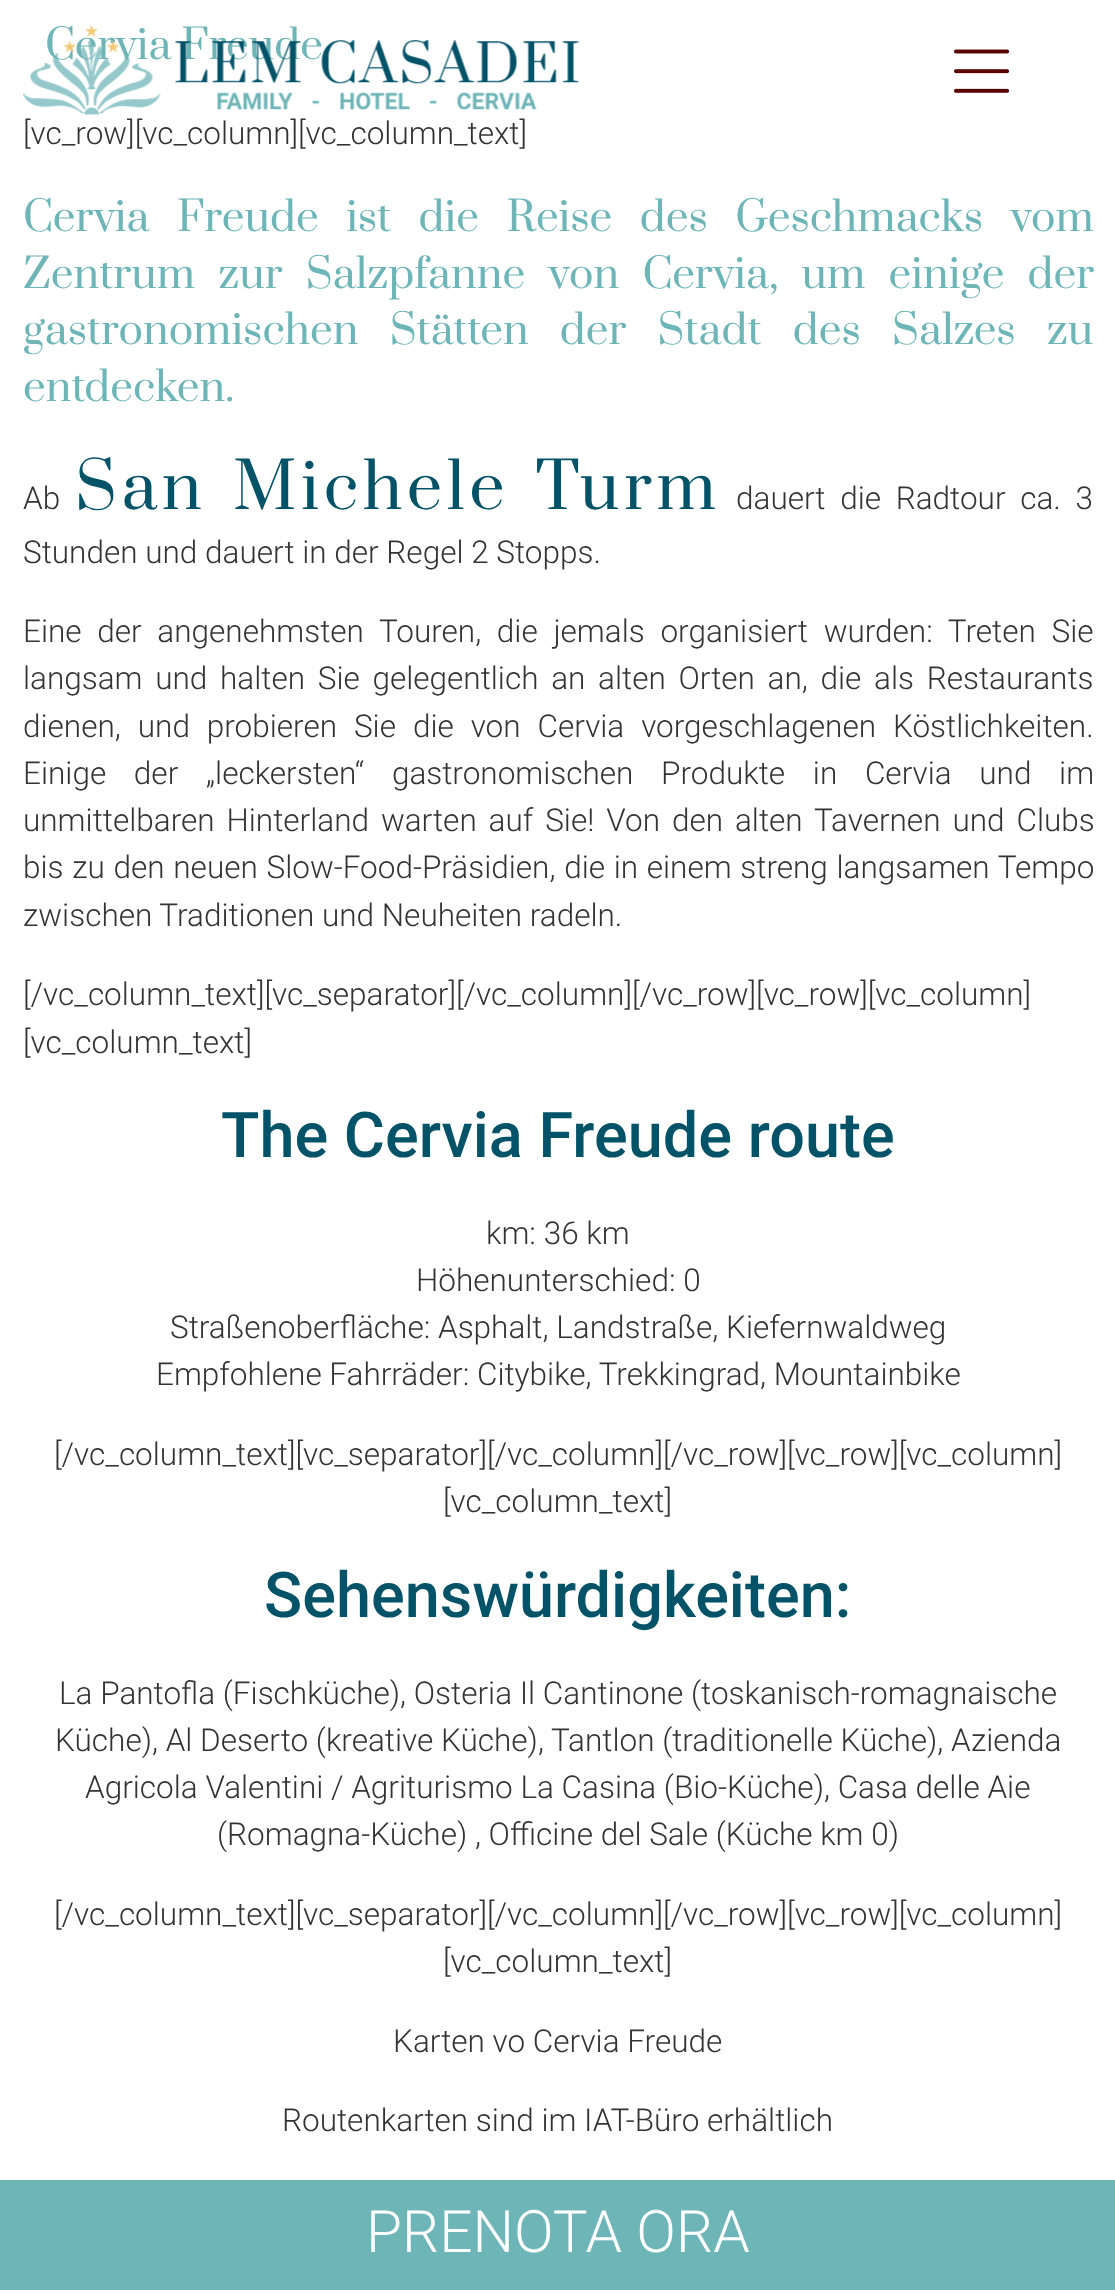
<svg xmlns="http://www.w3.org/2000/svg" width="1115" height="2290">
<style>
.a{font:40.5px Prata;fill:#6eb5b7}
.b{font:300 31.5px Roboto;fill:#333}
.c{font:63px Prata;letter-spacing:4.5px;fill:#025268}
.d{font:500 63px Roboto;fill:#025268}
.e{font:300 58.5px Roboto;fill:#fff}
</style>
<rect width="100%" height="100%" fill="#fff"/>
<image href="2.png" x="954" y="49" width="56" height="44"/>
<path fill="#6eb5b7" d="M0 2180h1115v110H0z"/>
<text class="a" x="45" y="59">Cervia Freude</text>
<text class="b" x="23" y="144">[vc_row][vc_column][vc_column_text]</text>
<text class="a" x="23" y="231" word-spacing="17.75">Cervia Freude ist die Reise des Geschmacks vom</text>
<text class="a" x="23" y="288" word-spacing="13.5">Zentrum zur Salzpfanne von Cervia, um einige der</text>
<text class="a" x="23" y="344" word-spacing="21.5">gastronomischen Stätten der Stadt des Salzes zu</text>
<text class="a" x="23" y="401">entdecken.</text>
<text class="b" x="23" y="509">Ab</text>
<text class="c" x="75" y="509" word-spacing="7">San Michele Turm</text>
<text class="b" x="736" y="509" word-spacing="7">dauert die Radtour ca. 3</text>
<text class="b" x="23" y="563">Stunden und dauert in der Regel 2 Stopps.</text>
<text class="b" x="23" y="642" word-spacing="8">Eine der angenehmsten Touren, die jemals organisiert wurden: Treten Sie</text>
<text class="b" x="23" y="689" word-spacing="5">langsam und halten Sie gelegentlich an alten Orten an, die als Restaurants</text>
<text class="b" x="23" y="737" word-spacing="9.25">dienen, und probieren Sie die von Cervia vorgeschlagenen Köstlichkeiten.</text>
<text class="b" x="23" y="784" word-spacing="20">Einige der „leckersten“ gastronomischen Produkte in Cervia und im</text>
<text class="b" x="23" y="831" word-spacing="4.25">unmittelbaren Hinterland warten auf Sie! Von den alten Tavernen und Clubs</text>
<text class="b" x="23" y="878" word-spacing="1">bis zu den neuen Slow-Food-Präsidien, die in einem streng langsamen Tempo</text>
<text class="b" x="23" y="926">zwischen Traditionen und Neuheiten radeln.</text>
<text class="b" x="23" y="1005">[/vc_column_text][vc_separator][/vc_column][/vc_row][vc_row][vc_column]</text>
<text class="b" x="23" y="1053">[vc_column_text]</text>
<text class="d" x="221" y="1157">The Cervia Freude route</text>
<text class="b" x="486" y="1244">km: 36 km</text>
<text class="b" x="416" y="1291">Höhenunterschied: 0</text>
<text class="b" x="170" y="1338">Straßenoberfläche: Asphalt, Landstraße, Kiefernwaldweg</text>
<text class="b" x="156" y="1385">Empfohlene Fahrräder: Citybike, Trekkingrad, Mountainbike</text>
<text class="b" x="54" y="1465">[/vc_column_text][vc_separator][/vc_column][/vc_row][vc_row][vc_column]</text>
<text class="b" x="443" y="1512">[vc_column_text]</text>
<text class="d" x="264" y="1617">Sehenswürdigkeiten:</text>
<text class="b" x="59" y="1704">La Pantofla (Fischküche), Osteria Il Cantinone (toskanisch-romagnaische</text>
<text class="b" x="55" y="1751">Küche), Al Deserto (kreative Küche), Tantlon (traditionelle Küche), Azienda</text>
<text class="b" x="85" y="1798">Agricola Valentini / Agriturismo La Casina (Bio-Küche), Casa delle Aie</text>
<text class="b" x="217" y="1845">(Romagna-Küche) , Officine del Sale (Küche km 0)</text>
<text class="b" x="54" y="1925">[/vc_column_text][vc_separator][/vc_column][/vc_row][vc_row][vc_column]</text>
<text class="b" x="443" y="1972">[vc_column_text]</text>
<text class="b" x="393" y="2052">Karten vo Cervia Freude</text>
<text class="b" x="282" y="2131">Routenkarten sind im IAT-Büro erhältlich</text>
<image href="1.png" x="23" y="25" width="556" height="91"/>
<text class="e" x="366" y="2252">PRENOTA ORA</text>
</svg>
